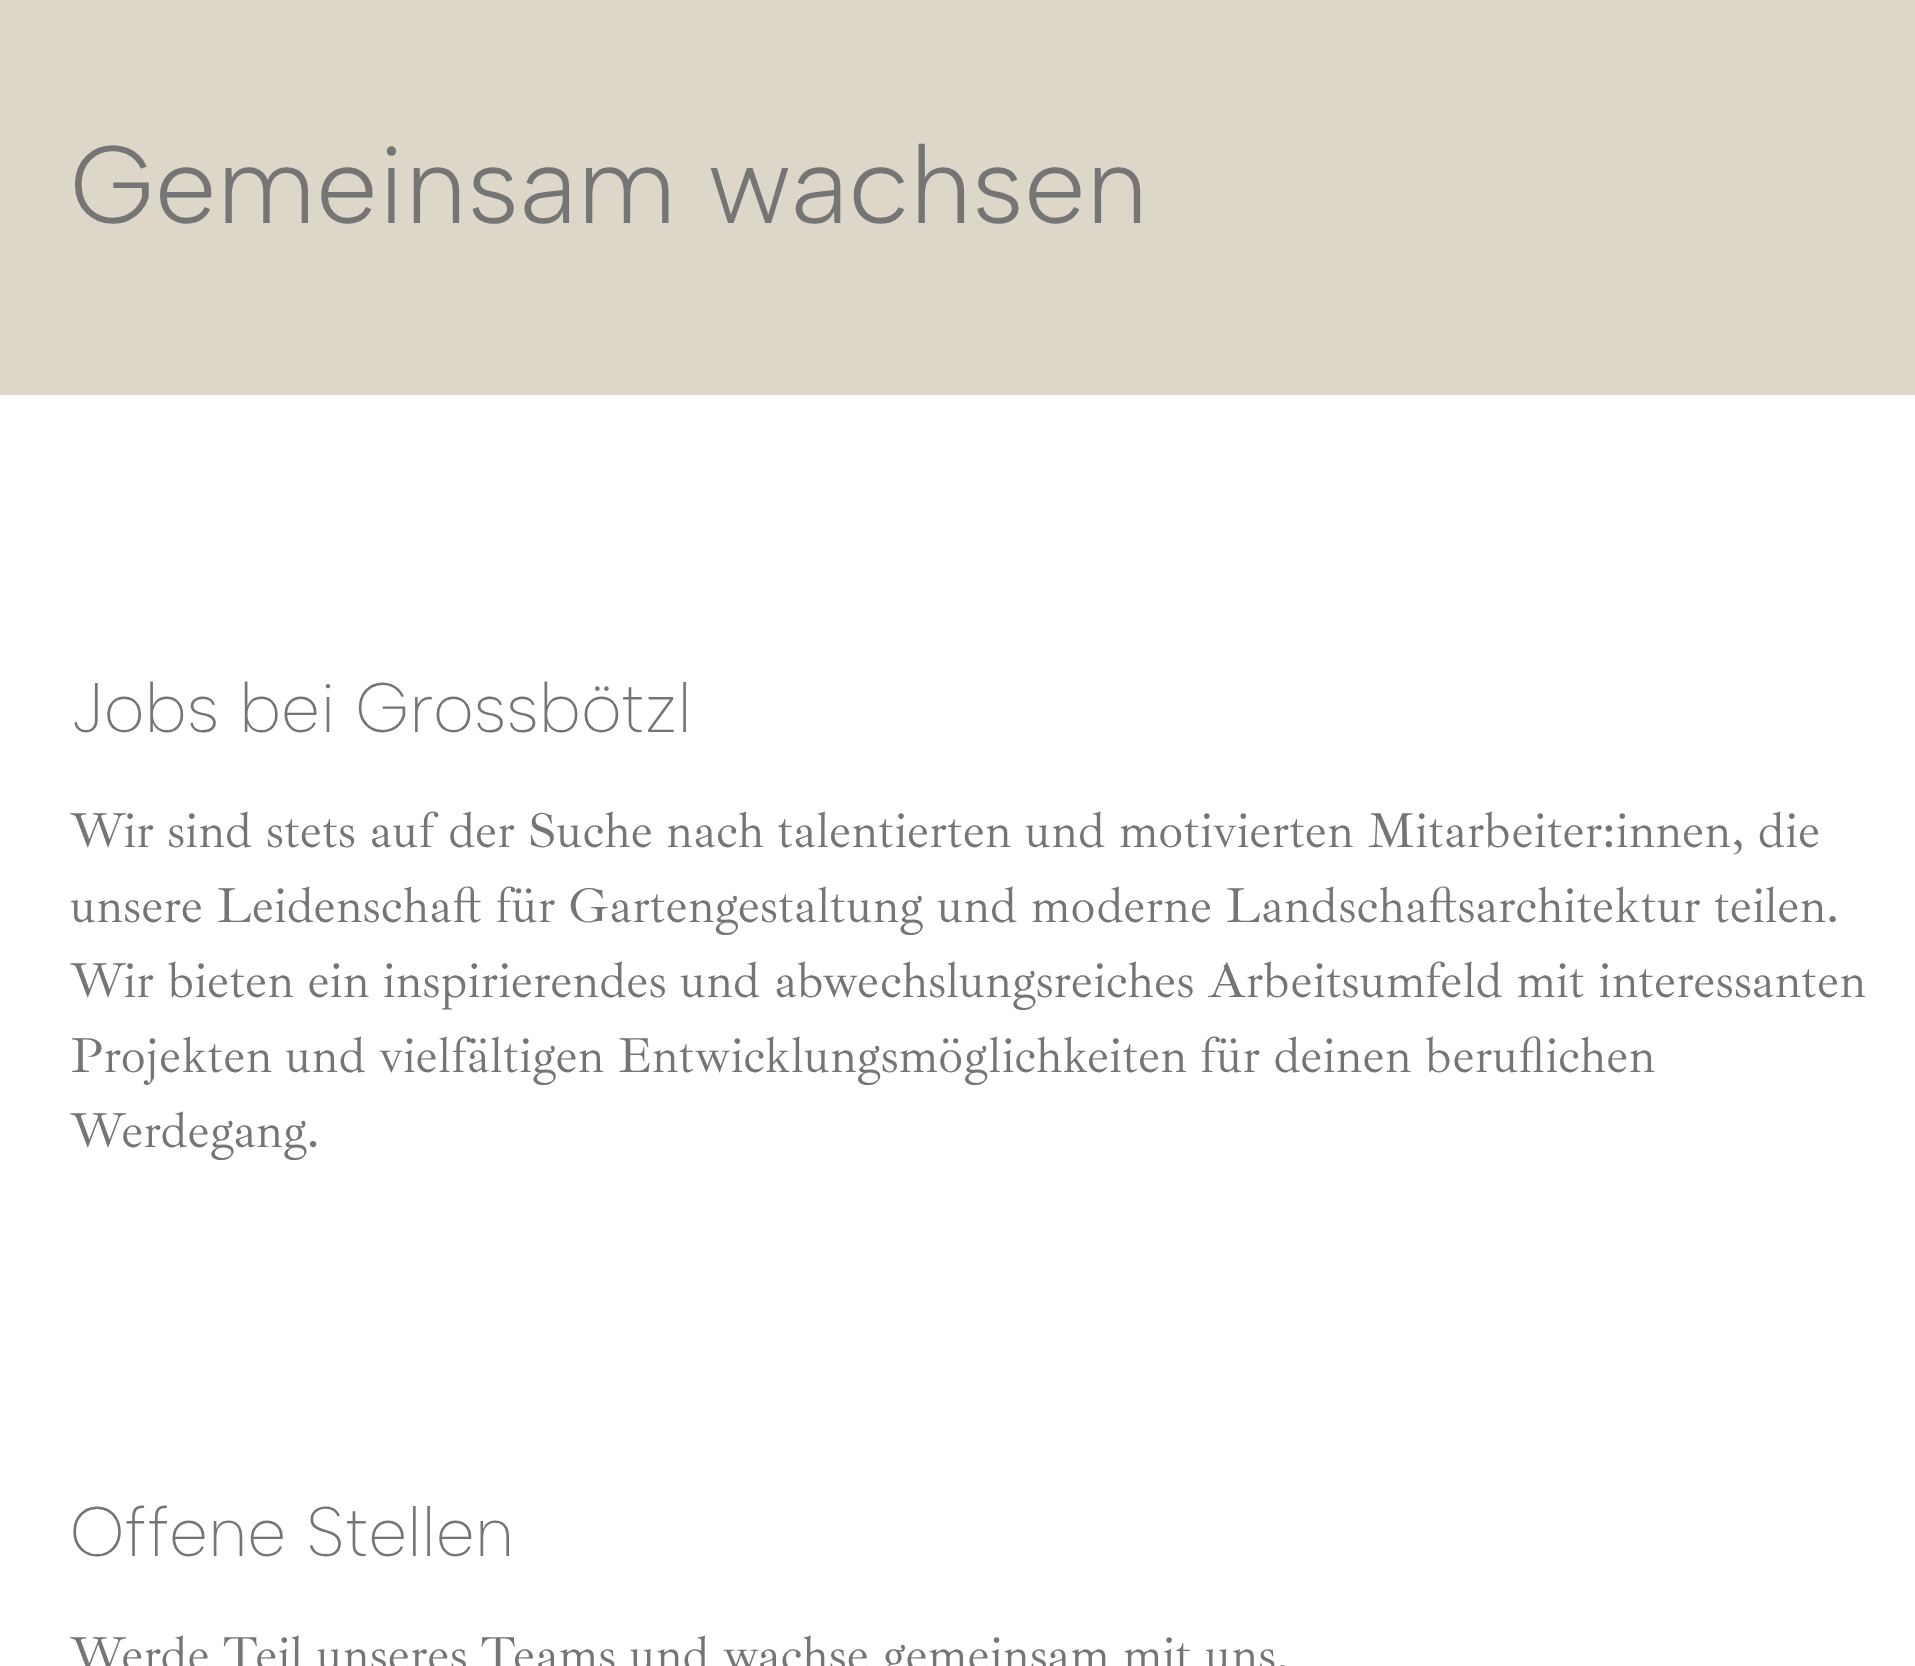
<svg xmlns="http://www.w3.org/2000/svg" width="1915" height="1666">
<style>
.a{font:300 110px Albert Sans;letter-spacing:0.25px;fill:#757575}
.b{font:200 70px Albert Sans;fill:#757575}
.c{font:50px Ibarra Real Nova;fill:#757575}
</style>
<rect width="100%" height="100%" fill="#fff"/>
<path fill="#dcd7c8" d="M0 0h1915v395H0z"/>
<text class="a" x="70" y="223">Gemeinsam wachsen</text>
<text class="b" x="70" y="732">Jobs bei Grossbötzl</text>
<text class="c" x="70" y="847">Wir sind stets auf der Suche nach talentierten und motivierten Mitarbeiter:innen, die</text>
<text class="c" x="70" y="922">unsere Leidenschaft für Gartengestaltung und moderne Landschaftsarchitektur teilen.</text>
<text class="c" x="70" y="997">Wir bieten ein inspirierendes und abwechslungsreiches Arbeitsumfeld mit interessanten</text>
<text class="c" x="70" y="1072">Projekten und vielfältigen Entwicklungsmöglichkeiten für deinen beruflichen</text>
<text class="c" x="70" y="1147">Werdegang.</text>
<text class="b" x="70" y="1556">Offene Stellen</text>
<text class="c" x="70" y="1671">Werde Teil unseres Teams und wachse gemeinsam mit uns.</text>
</svg>
